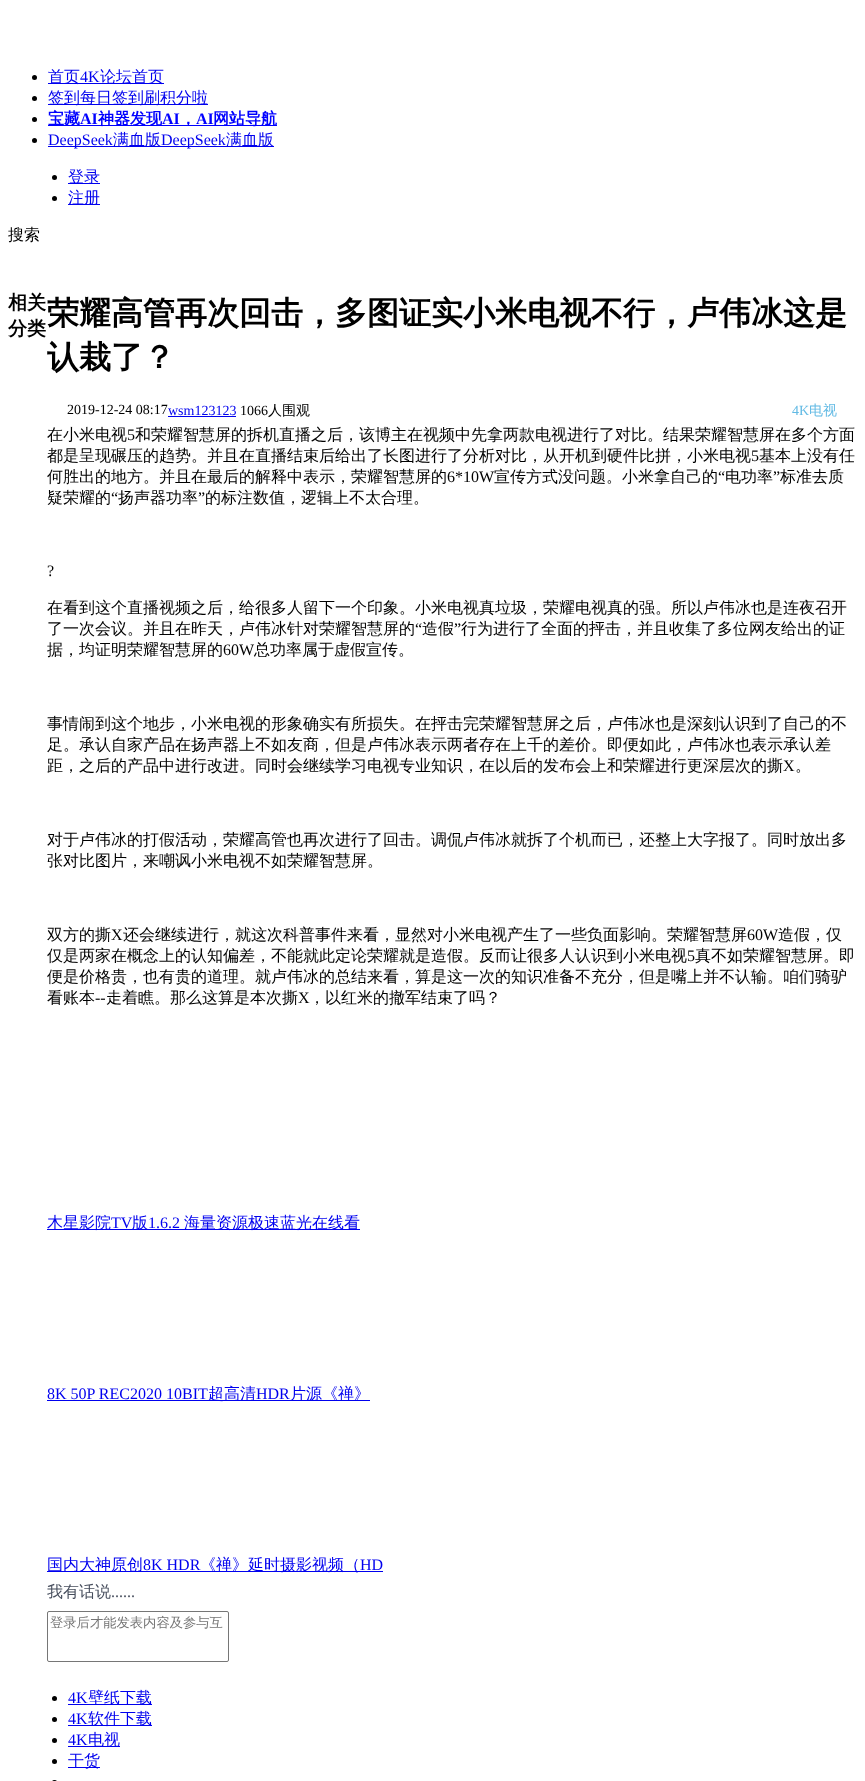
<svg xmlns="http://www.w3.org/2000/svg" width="865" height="1781">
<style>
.a{font:500 16px WenQuanYi Zen Hei;fill:#00e}
.b{font:16px Liberation Serif;fill:#00e}
.c{font:bold 16px WenQuanYi Zen Hei;fill:#00f}
.d{font:bold 16px Liberation Serif;fill:#00f}
.e{font:500 16px WenQuanYi Zen Hei;fill:#000}
.f{font:bold 19px WenQuanYi Zen Hei;fill:#000}
.g{font:bold 32px WenQuanYi Zen Hei;fill:#000}
.h{font:14px Liberation Serif;fill:#000}
.i{font:14px Liberation Serif;fill:#00e}
.j{font:500 14px WenQuanYi Zen Hei;fill:#000}
.k{font:14px Liberation Serif;fill:#62bae4}
.l{font:500 14px WenQuanYi Zen Hei;fill:#62bae4}
.m{font:16px Liberation Serif;fill:#000}
.n{font:500 16px WenQuanYi Zen Hei;fill:#474e5d}
.o{font:16px Liberation Serif;fill:#474e5d}
.p{font:500 13.3px WenQuanYi Zen Hei;fill:#757575}
</style>
<rect width="100%" height="100%" fill="#fff"/>
<circle fill="#000" cx="34.5" cy="77.5" r="2.5"/>
<path fill="#00e" d="M48 83h116v1H48z"/>
<circle fill="#000" cx="34.5" cy="98.5" r="2.5"/>
<path fill="#00e" d="M48 104h160v1H48z"/>
<circle fill="#000" cx="34.5" cy="119.5" r="2.5"/>
<path fill="#00f" d="M48 125h229v1H48z"/>
<circle fill="#000" cx="34.5" cy="140.5" r="2.5"/>
<path fill="#00e" d="M48 146h226v1H48z"/>
<circle fill="#000" cx="54.5" cy="177.5" r="2.5"/>
<path fill="#00e" d="M68 183h32v1H68z"/>
<circle fill="#000" cx="54.5" cy="198.5" r="2.5"/>
<path fill="#00e" d="M68 204h32v1H68z"/>
<circle fill="#000" cx="54.5" cy="1698.5" r="2.5"/>
<path fill="#00e" d="M68 1704h84v1H68z"/>
<circle fill="#000" cx="54.5" cy="1719.5" r="2.5"/>
<path fill="#00e" d="M68 1725h84v1H68z"/>
<circle fill="#000" cx="54.5" cy="1740.5" r="2.5"/>
<path fill="#00e" d="M68 1746h52v1H68z"/>
<circle fill="#000" cx="54.5" cy="1761.5" r="2.5"/>
<path fill="#00e" d="M68 1767h32v1H68z"/>
<rect fill="#000" x="52" y="1780" width="5" height="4" rx="2.5"/>
<path fill="#00e" d="M168 416h68v1H168z"/>
<path fill="#00e" d="M47 1229h313v1H47z"/>
<path fill="#00e" d="M47 1400h323v1H47z"/>
<path fill="#00e" d="M47 1571h336v1H47z"/>
<rect fill="none" stroke="#767676" x="47.5" y="1611.5" width="181" height="50" rx="1.5"/>
<text class="a" x="48" y="82">首页</text>
<text class="b" x="80" y="82">4K</text>
<text class="a" x="100" y="82">论坛首页</text>
<text class="a" x="48" y="103">签到每日签到刷积分啦</text>
<text class="c" x="48" y="124">宝藏</text>
<text class="d" x="80" y="124">AI</text>
<text class="c" x="98" y="124">神器发现</text>
<text class="d" x="162" y="124">AI</text>
<text class="d" x="196" y="124">AI</text>
<text class="c" x="213" y="124">网站导航</text>
<text class="c" x="180" y="124">，</text>
<text class="b" x="48" y="145">DeepSeek</text>
<text class="a" x="113" y="145">满血版</text>
<text class="b" x="161" y="145">DeepSeek</text>
<text class="a" x="226" y="145">满血版</text>
<text class="a" x="68" y="182">登录</text>
<text class="a" x="68" y="203">注册</text>
<text class="e" x="8" y="240">搜索</text>
<text class="f" x="8" y="309">相关</text>
<text class="f" x="8" y="335">分类</text>
<text class="b" x="68" y="1703">4K</text>
<text class="a" x="88" y="1703">壁纸下载</text>
<text class="b" x="68" y="1724">4K</text>
<text class="a" x="88" y="1724">软件下载</text>
<text class="b" x="68" y="1745">4K</text>
<text class="a" x="88" y="1745">电视</text>
<text class="a" x="68" y="1766">干货</text>
<text class="g" x="47" y="324">荣耀高管再次回击，多图证实小米电视不行，卢伟冰这是</text>
<text class="g" x="47" y="368">认栽了？</text>
<text class="h" x="67" y="414">2019-12-24 08:17</text>
<text class="i" x="168" y="415">wsm123123</text>
<text class="h" x="240" y="415">1066</text>
<text class="j" x="268" y="415">人围观</text>
<text class="k" x="792" y="415">4K</text>
<text class="l" x="809" y="415">电视</text>
<text class="e" x="47" y="440">在小米电视</text>
<text class="m" x="127" y="440">5</text>
<text class="e" x="135" y="440">和荣耀智慧屏的拆机直播之后，该博主在视频中先拿两款电视进行了对比。结果荣耀智慧屏在多个方面</text>
<text class="e" x="47" y="461">都是呈现碾压的趋势。并且在直播结束后给出了长图进行了分析对比，从开机到硬件比拼，小米电视</text>
<text class="m" x="751" y="461">5</text>
<text class="e" x="759" y="461">基本上没有任</text>
<text class="e" x="47" y="482">何胜出的地方。并且在最后的解释中表示，荣耀智慧屏的</text>
<text class="m" x="447" y="482">6*10W</text>
<text class="e" x="494" y="482">宣传方式没问题。小米拿自己的</text>
<text class="m" x="718" y="482">“</text>
<text class="e" x="725" y="482">电功率</text>
<text class="m" x="773" y="482">”</text>
<text class="e" x="780" y="482">标准去质</text>
<text class="e" x="47" y="503">疑荣耀的</text>
<text class="m" x="111" y="503">“</text>
<text class="e" x="118" y="503">扬声器功率</text>
<text class="m" x="198" y="503">”</text>
<text class="e" x="205" y="503">的标注数值，逻辑上不太合理。</text>
<text class="m" x="47" y="576">?</text>
<text class="e" x="47" y="613">在看到这个直播视频之后，给很多人留下一个印象。小米电视真垃圾，荣耀电视真的强。所以卢伟冰也是连夜召开</text>
<text class="e" x="47" y="634">了一次会议。并且在昨天，卢伟冰针对荣耀智慧屏的</text>
<text class="m" x="415" y="634">“</text>
<text class="e" x="422" y="634">造假</text>
<text class="m" x="454" y="634">”</text>
<text class="e" x="461" y="634">行为进行了全面的抨击，并且收集了多位网友给出的证</text>
<text class="e" x="47" y="655">据，均证明荣耀智慧屏的</text>
<text class="m" x="223" y="655">60W</text>
<text class="e" x="254" y="655">总功率属于虚假宣传。</text>
<text class="e" x="47" y="729">事情闹到这个地步，小米电视的形象确实有所损失。在抨击完荣耀智慧屏之后，卢伟冰也是深刻认识到了自己的不</text>
<text class="e" x="47" y="750">足。承认自家产品在扬声器上不如友商，但是卢伟冰表示两者存在上千的差价。即便如此，卢伟冰也表示承认差</text>
<text class="e" x="47" y="771">距，之后的产品中进行改进。同时会继续学习电视专业知识，在以后的发布会上和荣耀进行更深层次的撕</text>
<text class="m" x="783" y="771">X</text>
<text class="e" x="795" y="771">。</text>
<text class="e" x="47" y="845">对于卢伟冰的打假活动，荣耀高管也再次进行了回击。调侃卢伟冰就拆了个机而已，还整上大字报了。同时放出多</text>
<text class="e" x="47" y="866">张对比图片，来嘲讽小米电视不如荣耀智慧屏。</text>
<text class="e" x="47" y="940">双方的撕</text>
<text class="m" x="111" y="940">X</text>
<text class="e" x="123" y="940">还会继续进行，就这次科普事件来看，显然对小米电视产生了一些负面影响。荣耀智慧屏</text>
<text class="m" x="747" y="940">60W</text>
<text class="e" x="778" y="940">造假，仅</text>
<text class="e" x="47" y="961">仅是两家在概念上的认知偏差，不能就此定论荣耀就是造假。反而让很多人认识到小米电视</text>
<text class="m" x="687" y="961">5</text>
<text class="e" x="695" y="961">真不如荣耀智慧屏。即</text>
<text class="e" x="47" y="982">便是价格贵，也有贵的道理。就卢伟冰的总结来看，算是这一次的知识准备不充分，但是嘴上并不认输。咱们骑驴</text>
<text class="e" x="47" y="1003">看账本</text>
<text class="m" x="95" y="1003">--</text>
<text class="e" x="106" y="1003">走着瞧。那么这算是本次撕</text>
<text class="m" x="298" y="1003">X</text>
<text class="e" x="309" y="1003">，以红米的撤军结束了吗？</text>
<text class="a" x="47" y="1228">木星影院</text>
<text class="b" x="111" y="1228">TV</text>
<text class="a" x="132" y="1228">版</text>
<text class="b" x="148" y="1228">1.6.2</text>
<text class="a" x="184" y="1228">海量资源极速蓝光在线看</text>
<text class="b" x="47" y="1399">8K 50P REC2020 10BIT</text>
<text class="a" x="208" y="1399">超高清</text>
<text class="b" x="256" y="1399">HDR</text>
<text class="a" x="290" y="1399">片源《禅》</text>
<text class="a" x="47" y="1570">国内大神原创</text>
<text class="b" x="143" y="1570">8K HDR</text>
<text class="a" x="200" y="1570">《禅》延时摄影视频（</text>
<text class="b" x="360" y="1570">HD</text>
<text class="n" x="47" y="1597">我有话说</text>
<text class="o" x="111" y="1597">......</text>
<text class="p" x="50" y="1627">登录后才能发表内容及参与互</text>
</svg>
